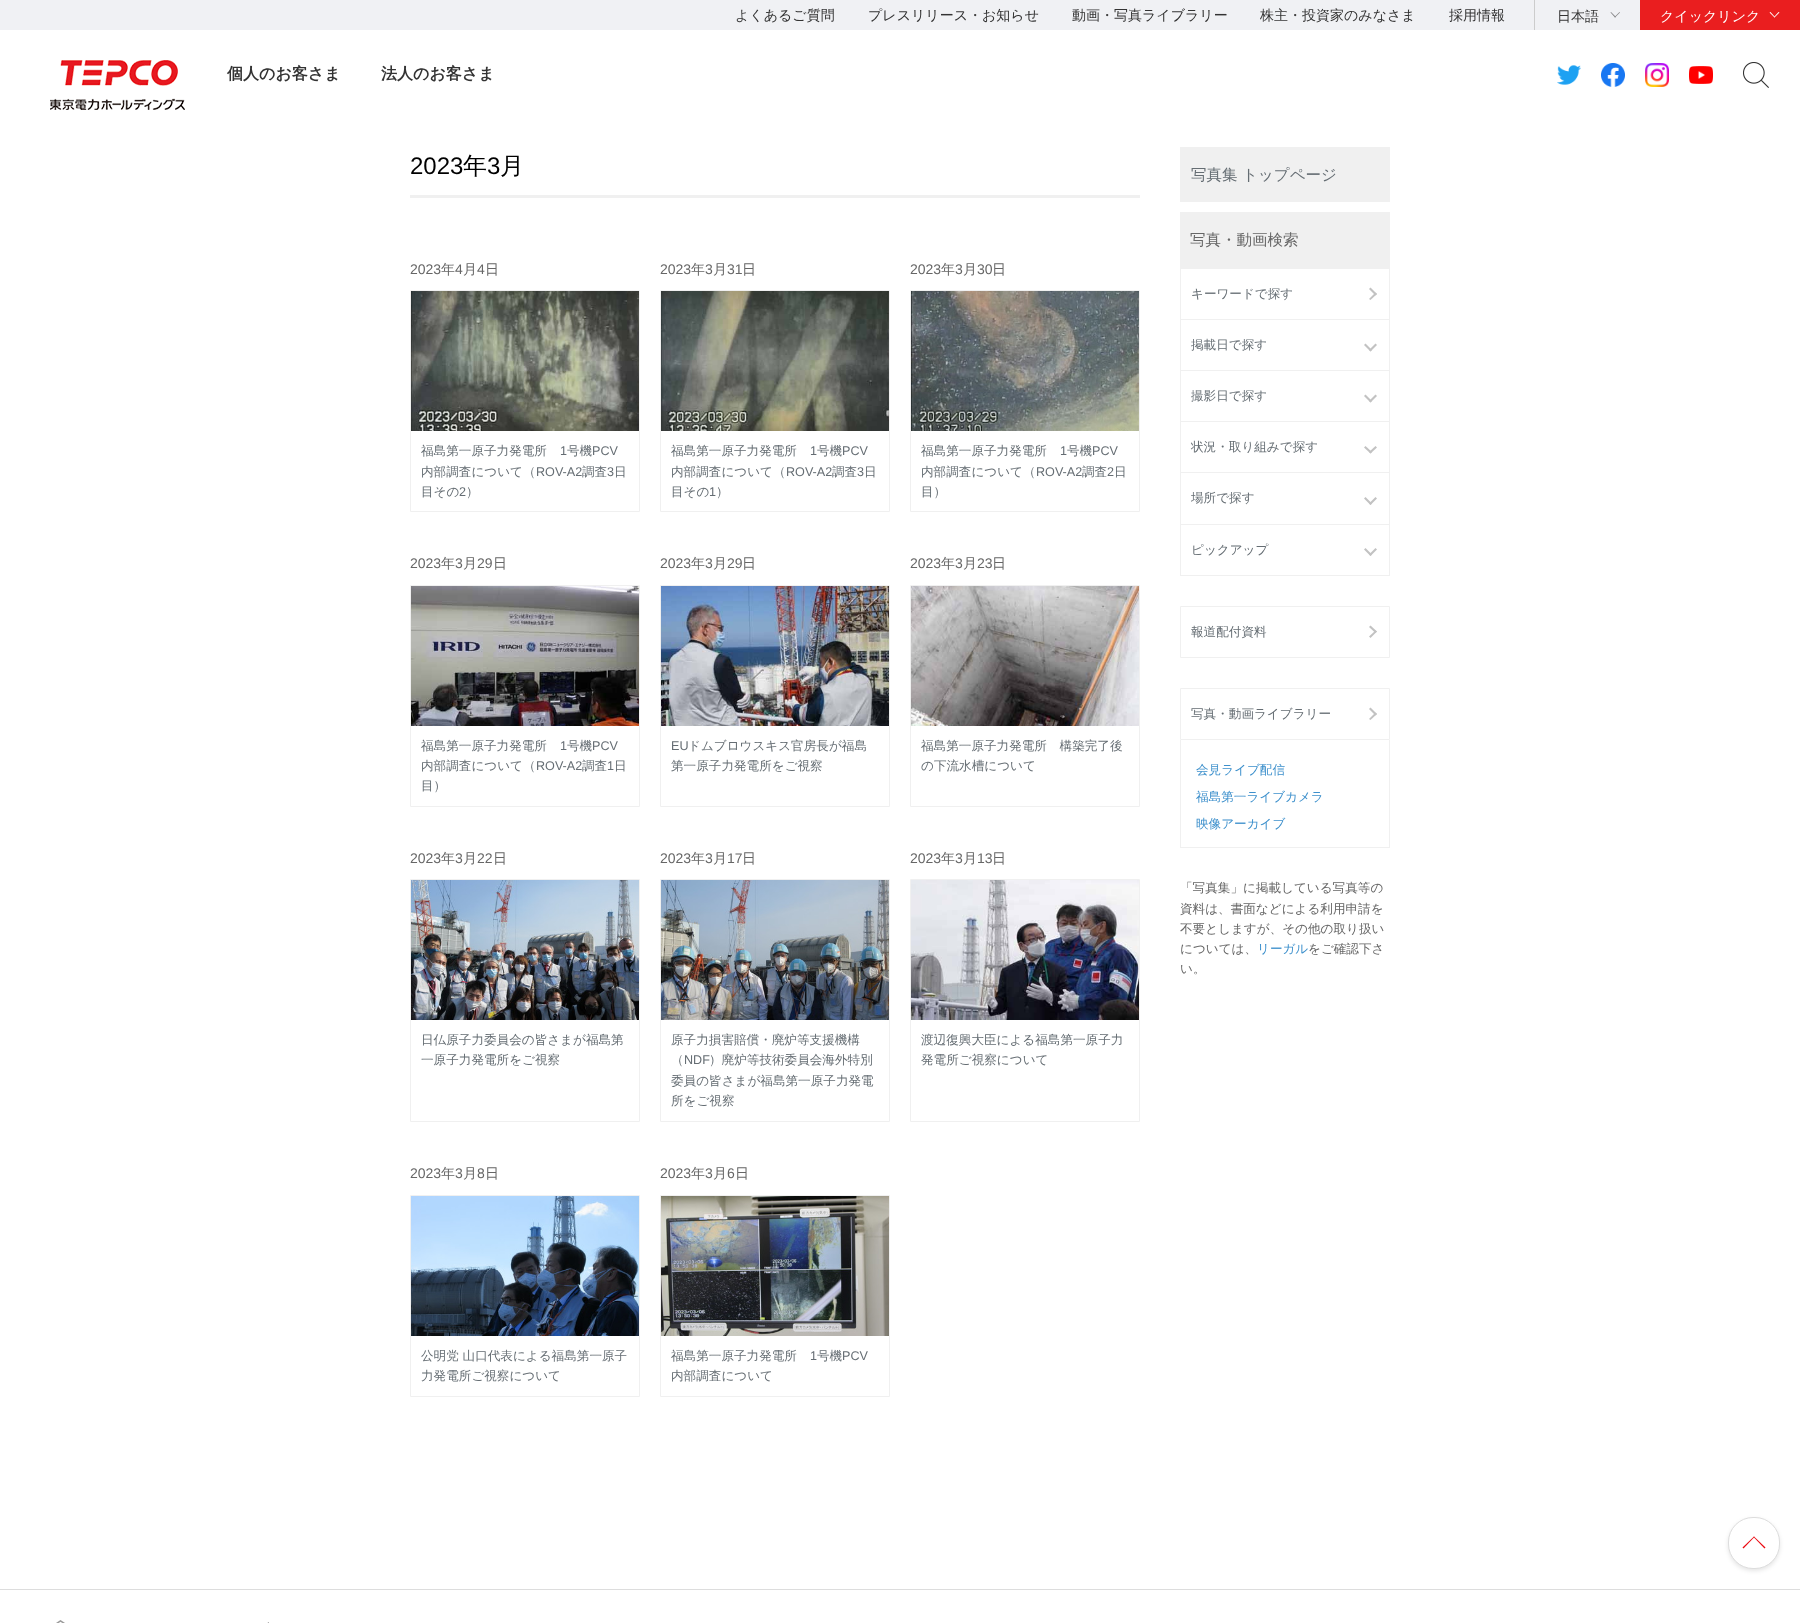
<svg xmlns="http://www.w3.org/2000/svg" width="1800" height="1623">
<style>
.a{font:500 14px WenQuanYi Zen Hei;fill:#333}
.b{font:500 14px WenQuanYi Zen Hei;fill:#fff}
.c{font:bold 16px WenQuanYi Zen Hei;fill:#333}
.d{font:24px Liberation Sans;fill:#000}
.e{font:500 24px WenQuanYi Zen Hei;fill:#000}
.f{font:14px Liberation Sans;fill:#666}
.g{font:500 14px WenQuanYi Zen Hei;fill:#666}
.h{font:500 12.6px WenQuanYi Zen Hei;fill:#656d73}
.i{font:12.6px Liberation Sans;fill:#656d73}
.j{font:500 15.5px WenQuanYi Zen Hei;fill:#656d73}
.k{font:500 15.5px WenQuanYi Zen Hei;fill:#666}
.l{font:500 12.6px WenQuanYi Zen Hei;fill:#3d90cc}
.m{font:500 12.6px WenQuanYi Zen Hei;fill:#666}
</style>
<rect width="100%" height="100%" fill="#fff"/>
<image href="1.png" x="50" y="60" width="135" height="50"/>
<path fill="#f0f1f4" d="M0 0h1640v30H0z"/>
<path fill="#ccc" d="M1534 0h1v30H1534z"/>
<path fill="#848485" d="M1619.5 12l.5 .5l-5 5l-.5-.5z"/>
<path fill="#848485" d="M1611 12l5 5l-1 .5l-4.5-5z"/>
<path fill="#ea1e1f" d="M1640 0h160v30H1640z"/>
<path fill="#fff" d="M1778.5 12l1 .5l-5 5l-.5-.5z"/>
<path fill="#fff" d="M1770.5 12l4.5 5l-.5 .5l-5-5z"/>
<image href="2.png" x="1557" y="65" width="24" height="20"/>
<image href="3.png" x="1601" y="63" width="24" height="24"/>
<image href="4.png" x="1645" y="63" width="24" height="24"/>
<image href="5.png" x="1689" y="66" width="24" height="18"/>
<image href="6.png" x="1743" y="62" width="26" height="26"/>
<path fill="#f0f0f0" d="M410 195h730v3H410z"/>
<path fill="none" stroke="#f0f0f0" d="M410.5 290.5h229v221H410.5z"/>
<image href="7.png" x="411" y="291" width="228" height="140"/>
<path fill="none" stroke="#f0f0f0" d="M660.5 290.5h229v221H660.5z"/>
<image href="8.png" x="661" y="291" width="228" height="140"/>
<path fill="none" stroke="#f0f0f0" d="M910.5 290.5h229v221H910.5z"/>
<image href="9.png" x="911" y="291" width="228" height="140"/>
<path fill="none" stroke="#f0f0f0" d="M410.5 585.5h229v221H410.5z"/>
<image href="10.png" x="411" y="586" width="228" height="140"/>
<path fill="none" stroke="#f0f0f0" d="M660.5 585.5h229v221H660.5z"/>
<image href="11.png" x="661" y="586" width="228" height="140"/>
<path fill="none" stroke="#f0f0f0" d="M910.5 585.5h229v221H910.5z"/>
<image href="12.png" x="911" y="586" width="228" height="140"/>
<path fill="none" stroke="#f0f0f0" d="M410.5 879.5h229v242H410.5z"/>
<image href="13.png" x="411" y="880" width="228" height="140"/>
<path fill="none" stroke="#f0f0f0" d="M660.5 879.5h229v242H660.5z"/>
<image href="14.png" x="661" y="880" width="228" height="140"/>
<path fill="none" stroke="#f0f0f0" d="M910.5 879.5h229v242H910.5z"/>
<image href="15.png" x="911" y="880" width="228" height="140"/>
<path fill="none" stroke="#f0f0f0" d="M410.5 1195.5h229v201H410.5z"/>
<image href="16.png" x="411" y="1196" width="228" height="140"/>
<path fill="none" stroke="#f0f0f0" d="M660.5 1195.5h229v201H660.5z"/>
<image href="17.png" x="661" y="1196" width="228" height="140"/>
<path fill="#f0f0f0" d="M1180 147h210v55H1180z"/>
<path fill="#f0f0f0" d="M1180 212h210v57H1180z"/>
<path fill="#f0f0f0" d="M1180 575h210v1H1180z"/>
<path fill="#f0f0f0" d="M1389 268h1v51H1389z"/>
<path fill="#f0f0f0" d="M1180 268h1v51H1180z"/>
<path fill="#c2c2c2" d="M1370.5 287.5l6.5 6.5l-1.5 1.5l-6.5-6.5z"/>
<path fill="#c2c2c2" d="M1375.5 292.5l1.5 1.5l-6.5 6l-1.5-1z"/>
<path fill="#f0f0f0" d="M1180 319h210v1H1180z"/>
<path fill="#f0f0f0" d="M1389 319h1v51H1389z"/>
<path fill="#f0f0f0" d="M1180 319h1v51H1180z"/>
<path fill="#c2c2c2" d="M1375.5 343.5l1.5 1.5l-6.5 6.5l-1.5-1.5z"/>
<path fill="#c2c2c2" d="M1365.5 343.5l6.5 6.5l-1.5 1.5l-6.5-6.5z"/>
<path fill="#f0f0f0" d="M1180 370h210v1H1180z"/>
<path fill="#f0f0f0" d="M1389 370h1v51H1389z"/>
<path fill="#f0f0f0" d="M1180 370h1v51H1180z"/>
<path fill="#c2c2c2" d="M1375.5 394.5l1.5 1.5l-6.5 6.5l-1.5-1.5z"/>
<path fill="#c2c2c2" d="M1365.5 394.5l6.5 6.5l-1.5 1.5l-6.5-6.5z"/>
<path fill="#f0f0f0" d="M1180 421h210v1H1180z"/>
<path fill="#f0f0f0" d="M1389 421h1v51H1389z"/>
<path fill="#f0f0f0" d="M1180 421h1v51H1180z"/>
<path fill="#c2c2c2" d="M1375.5 446l1.5 1.5l-6.5 6l-1.5-1.5z"/>
<path fill="#c2c2c2" d="M1365.5 446l6.5 6l-1.5 1.5l-6.5-6z"/>
<path fill="#f0f0f0" d="M1180 472h210v1H1180z"/>
<path fill="#f0f0f0" d="M1389 472h1v52H1389z"/>
<path fill="#f0f0f0" d="M1180 472h1v52H1180z"/>
<path fill="#c2c2c2" d="M1375.5 497l1.5 1.5l-6.5 6.5l-1.5-1.5z"/>
<path fill="#c2c2c2" d="M1365.5 497l6.5 6.5l-1.5 1.5l-6.5-6.5z"/>
<path fill="#f0f0f0" d="M1180 524h210v1H1180z"/>
<path fill="#f0f0f0" d="M1389 524h1v51H1389z"/>
<path fill="#f0f0f0" d="M1180 524h1v51H1180z"/>
<path fill="#c2c2c2" d="M1375.5 548l1.5 1.5l-6.5 6.5l-1.5-1.5z"/>
<path fill="#c2c2c2" d="M1365.5 548l6.5 6.5l-1.5 1.5l-6.5-6.5z"/>
<path fill="none" stroke="#f0f0f0" d="M1180.5 606.5h209v51H1180.5z"/>
<path fill="#c2c2c2" d="M1370.5 625.5l6.5 6l-1.5 1.5l-6.5-6z"/>
<path fill="#c2c2c2" d="M1375.5 630.5l1.5 1l-6.5 6.5l-1.5-1.5z"/>
<path fill="none" stroke="#f0f0f0" d="M1180.5 688.5h209v51H1180.5z"/>
<path fill="#c2c2c2" d="M1370.5 707.5l6.5 6.5l-1.5 1.5l-6.5-6.5z"/>
<path fill="#c2c2c2" d="M1375.5 712.5l1.5 1.5l-6.5 6l-1.5-1z"/>
<path fill="#f0f0f0" d="M1389 740h1v108H1389z"/>
<path fill="#f0f0f0" d="M1180 847h210v1H1180z"/>
<path fill="#f0f0f0" d="M1180 740h1v108H1180z"/>
<rect fill="#0000001a" filter="blur(2px)" x="1728" y="1519" width="52" height="52" rx="25"/>
<rect fill="#fff" stroke="#ddd" x="1728.5" y="1517.5" width="51" height="51" rx="24.5"/>
<path fill="#eb0810" d="M1742.5 1547.5l11.5-11l.5 .5l-11 11.5z"/>
<path fill="#eb0810" d="M1753.5 1537l.5-.5l11.5 11l-1 1z"/>
<path fill="#ddd" d="M0 1589h1800v1H0z"/>
<image href="18.png" x="56" y="1620" width="9" height="3"/>
<image href="19.png" x="267" y="1622" width="2" height="1"/>
<text class="a" x="735" y="20">よくあるご質問</text>
<text class="a" x="868" y="20">プレスリリース・お知らせ</text>
<text class="a" x="1072" y="20">動画・写真ライブラリー</text>
<text class="a" x="1260" y="20">株主・投資家のみなさま</text>
<text class="a" x="1449" y="20">採用情報</text>
<text class="a" x="1557" y="21">日本語</text>
<text class="b" x="1660" y="21">クイックリンク</text>
<text class="c" x="227" y="79">個人のお客さま</text>
<text class="c" x="381" y="79">法人のお客さま</text>
<text class="d" x="410" y="174">2023</text>
<text class="e" x="463" y="174">年</text>
<text class="d" x="487" y="174">3</text>
<text class="e" x="500" y="174">月</text>
<text class="f" x="410" y="274">2023</text>
<text class="g" x="441" y="274">年</text>
<text class="f" x="455" y="274">4</text>
<text class="g" x="463" y="274">月</text>
<text class="f" x="477" y="274">4</text>
<text class="g" x="485" y="274">日</text>
<text class="h" x="421" y="455">福島第一原子力発電所</text>
<text class="i" x="560" y="455">1</text>
<text class="h" x="567" y="455">号機</text>
<text class="i" x="592" y="455">PCV</text>
<text class="h" x="421" y="476">内部調査について（</text>
<text class="i" x="536" y="476">ROV-A2</text>
<text class="h" x="582" y="476">調査</text>
<text class="i" x="607" y="476">3</text>
<text class="h" x="614" y="476">日</text>
<text class="h" x="421" y="496">目その</text>
<text class="i" x="459" y="496">2</text>
<text class="h" x="466" y="496">）</text>
<text class="f" x="660" y="274">2023</text>
<text class="g" x="691" y="274">年</text>
<text class="f" x="705" y="274">3</text>
<text class="g" x="713" y="274">月</text>
<text class="f" x="727" y="274">31</text>
<text class="g" x="742" y="274">日</text>
<text class="h" x="671" y="455">福島第一原子力発電所</text>
<text class="i" x="810" y="455">1</text>
<text class="h" x="817" y="455">号機</text>
<text class="i" x="842" y="455">PCV</text>
<text class="h" x="671" y="476">内部調査について（</text>
<text class="i" x="786" y="476">ROV-A2</text>
<text class="h" x="832" y="476">調査</text>
<text class="i" x="857" y="476">3</text>
<text class="h" x="864" y="476">日</text>
<text class="h" x="671" y="496">目その</text>
<text class="i" x="709" y="496">1</text>
<text class="h" x="716" y="496">）</text>
<text class="f" x="910" y="274">2023</text>
<text class="g" x="941" y="274">年</text>
<text class="f" x="955" y="274">3</text>
<text class="g" x="963" y="274">月</text>
<text class="f" x="977" y="274">30</text>
<text class="g" x="992" y="274">日</text>
<text class="h" x="921" y="455">福島第一原子力発電所</text>
<text class="i" x="1060" y="455">1</text>
<text class="h" x="1067" y="455">号機</text>
<text class="i" x="1092" y="455">PCV</text>
<text class="h" x="921" y="476">内部調査について（</text>
<text class="i" x="1036" y="476">ROV-A2</text>
<text class="h" x="1082" y="476">調査</text>
<text class="i" x="1107" y="476">2</text>
<text class="h" x="1114" y="476">日</text>
<text class="h" x="921" y="496">目）</text>
<text class="f" x="410" y="568">2023</text>
<text class="g" x="441" y="568">年</text>
<text class="f" x="455" y="568">3</text>
<text class="g" x="463" y="568">月</text>
<text class="f" x="477" y="568">29</text>
<text class="g" x="493" y="568">日</text>
<text class="h" x="421" y="750">福島第一原子力発電所</text>
<text class="i" x="560" y="750">1</text>
<text class="h" x="567" y="750">号機</text>
<text class="i" x="592" y="750">PCV</text>
<text class="h" x="421" y="770">内部調査について（</text>
<text class="i" x="536" y="770">ROV-A2</text>
<text class="h" x="582" y="770">調査</text>
<text class="i" x="607" y="770">1</text>
<text class="h" x="614" y="770">日</text>
<text class="h" x="421" y="790">目）</text>
<text class="f" x="660" y="568">2023</text>
<text class="g" x="691" y="568">年</text>
<text class="f" x="705" y="568">3</text>
<text class="g" x="713" y="568">月</text>
<text class="f" x="727" y="568">29</text>
<text class="g" x="742" y="568">日</text>
<text class="i" x="671" y="750">EU</text>
<text class="h" x="688" y="750">ドムブロウスキス官房長が福島</text>
<text class="h" x="671" y="770">第一原子力発電所をご視察</text>
<text class="f" x="910" y="568">2023</text>
<text class="g" x="941" y="568">年</text>
<text class="f" x="955" y="568">3</text>
<text class="g" x="963" y="568">月</text>
<text class="f" x="977" y="568">23</text>
<text class="g" x="992" y="568">日</text>
<text class="h" x="921" y="750">福島第一原子力発電所　構築完了後</text>
<text class="h" x="921" y="770">の下流水槽について</text>
<text class="f" x="410" y="863">2023</text>
<text class="g" x="441" y="863">年</text>
<text class="f" x="455" y="863">3</text>
<text class="g" x="463" y="863">月</text>
<text class="f" x="477" y="863">22</text>
<text class="g" x="493" y="863">日</text>
<text class="h" x="421" y="1044">日仏原子力委員会の皆さまが福島第</text>
<text class="h" x="421" y="1064">一原子力発電所をご視察</text>
<text class="f" x="660" y="863">2023</text>
<text class="g" x="691" y="863">年</text>
<text class="f" x="705" y="863">3</text>
<text class="g" x="713" y="863">月</text>
<text class="f" x="727" y="863">17</text>
<text class="g" x="742" y="863">日</text>
<text class="h" x="671" y="1044">原子力損害賠償・廃炉等支援機構</text>
<text class="h" x="671" y="1064">（</text>
<text class="i" x="684" y="1064">NDF</text>
<text class="h" x="709" y="1064">）廃炉等技術委員会海外特別</text>
<text class="h" x="671" y="1085">委員の皆さまが福島第一原子力発電</text>
<text class="h" x="671" y="1105">所をご視察</text>
<text class="f" x="910" y="863">2023</text>
<text class="g" x="941" y="863">年</text>
<text class="f" x="955" y="863">3</text>
<text class="g" x="963" y="863">月</text>
<text class="f" x="977" y="863">13</text>
<text class="g" x="992" y="863">日</text>
<text class="h" x="921" y="1044">渡辺復興大臣による福島第一原子力</text>
<text class="h" x="921" y="1064">発電所ご視察について</text>
<text class="f" x="410" y="1178">2023</text>
<text class="g" x="441" y="1178">年</text>
<text class="f" x="455" y="1178">3</text>
<text class="g" x="463" y="1178">月</text>
<text class="f" x="477" y="1178">8</text>
<text class="g" x="485" y="1178">日</text>
<text class="h" x="421" y="1360">公明党 山口代表による福島第一原子</text>
<text class="h" x="421" y="1380">力発電所ご視察について</text>
<text class="f" x="660" y="1178">2023</text>
<text class="g" x="691" y="1178">年</text>
<text class="f" x="705" y="1178">3</text>
<text class="g" x="713" y="1178">月</text>
<text class="f" x="727" y="1178">6</text>
<text class="g" x="735" y="1178">日</text>
<text class="h" x="671" y="1360">福島第一原子力発電所</text>
<text class="i" x="810" y="1360">1</text>
<text class="h" x="817" y="1360">号機</text>
<text class="i" x="842" y="1360">PCV</text>
<text class="h" x="671" y="1380">内部調査について</text>
<text class="j" x="1191" y="180">写真集 トップページ</text>
<text class="k" x="1190" y="245">写真・動画検索</text>
<text class="h" x="1191" y="298">キーワードで探す</text>
<text class="h" x="1191" y="349">掲載日で探す</text>
<text class="h" x="1191" y="400">撮影日で探す</text>
<text class="h" x="1191" y="451">状況・取り組みで探す</text>
<text class="h" x="1191" y="502">場所で探す</text>
<text class="h" x="1191" y="554">ピックアップ</text>
<text class="h" x="1191" y="636">報道配付資料</text>
<text class="h" x="1191" y="718">写真・動画ライブラリー</text>
<text class="l" x="1196" y="774">会見ライブ配信</text>
<text class="l" x="1196" y="801">福島第一ライブカメラ</text>
<text class="l" x="1196" y="828">映像アーカイブ</text>
<text class="m" x="1180" y="892">「写真集」に掲載している写真等の</text>
<text class="m" x="1180" y="913">資料は、書面などによる利用申請を</text>
<text class="m" x="1180" y="933">不要としますが、その他の取り扱い</text>
<text class="m" x="1180" y="953">については、</text>
<text class="l" x="1257" y="953">リーガル</text>
<text class="m" x="1308" y="953">をご確認下さ</text>
<text class="m" x="1180" y="973">い。</text>
</svg>
